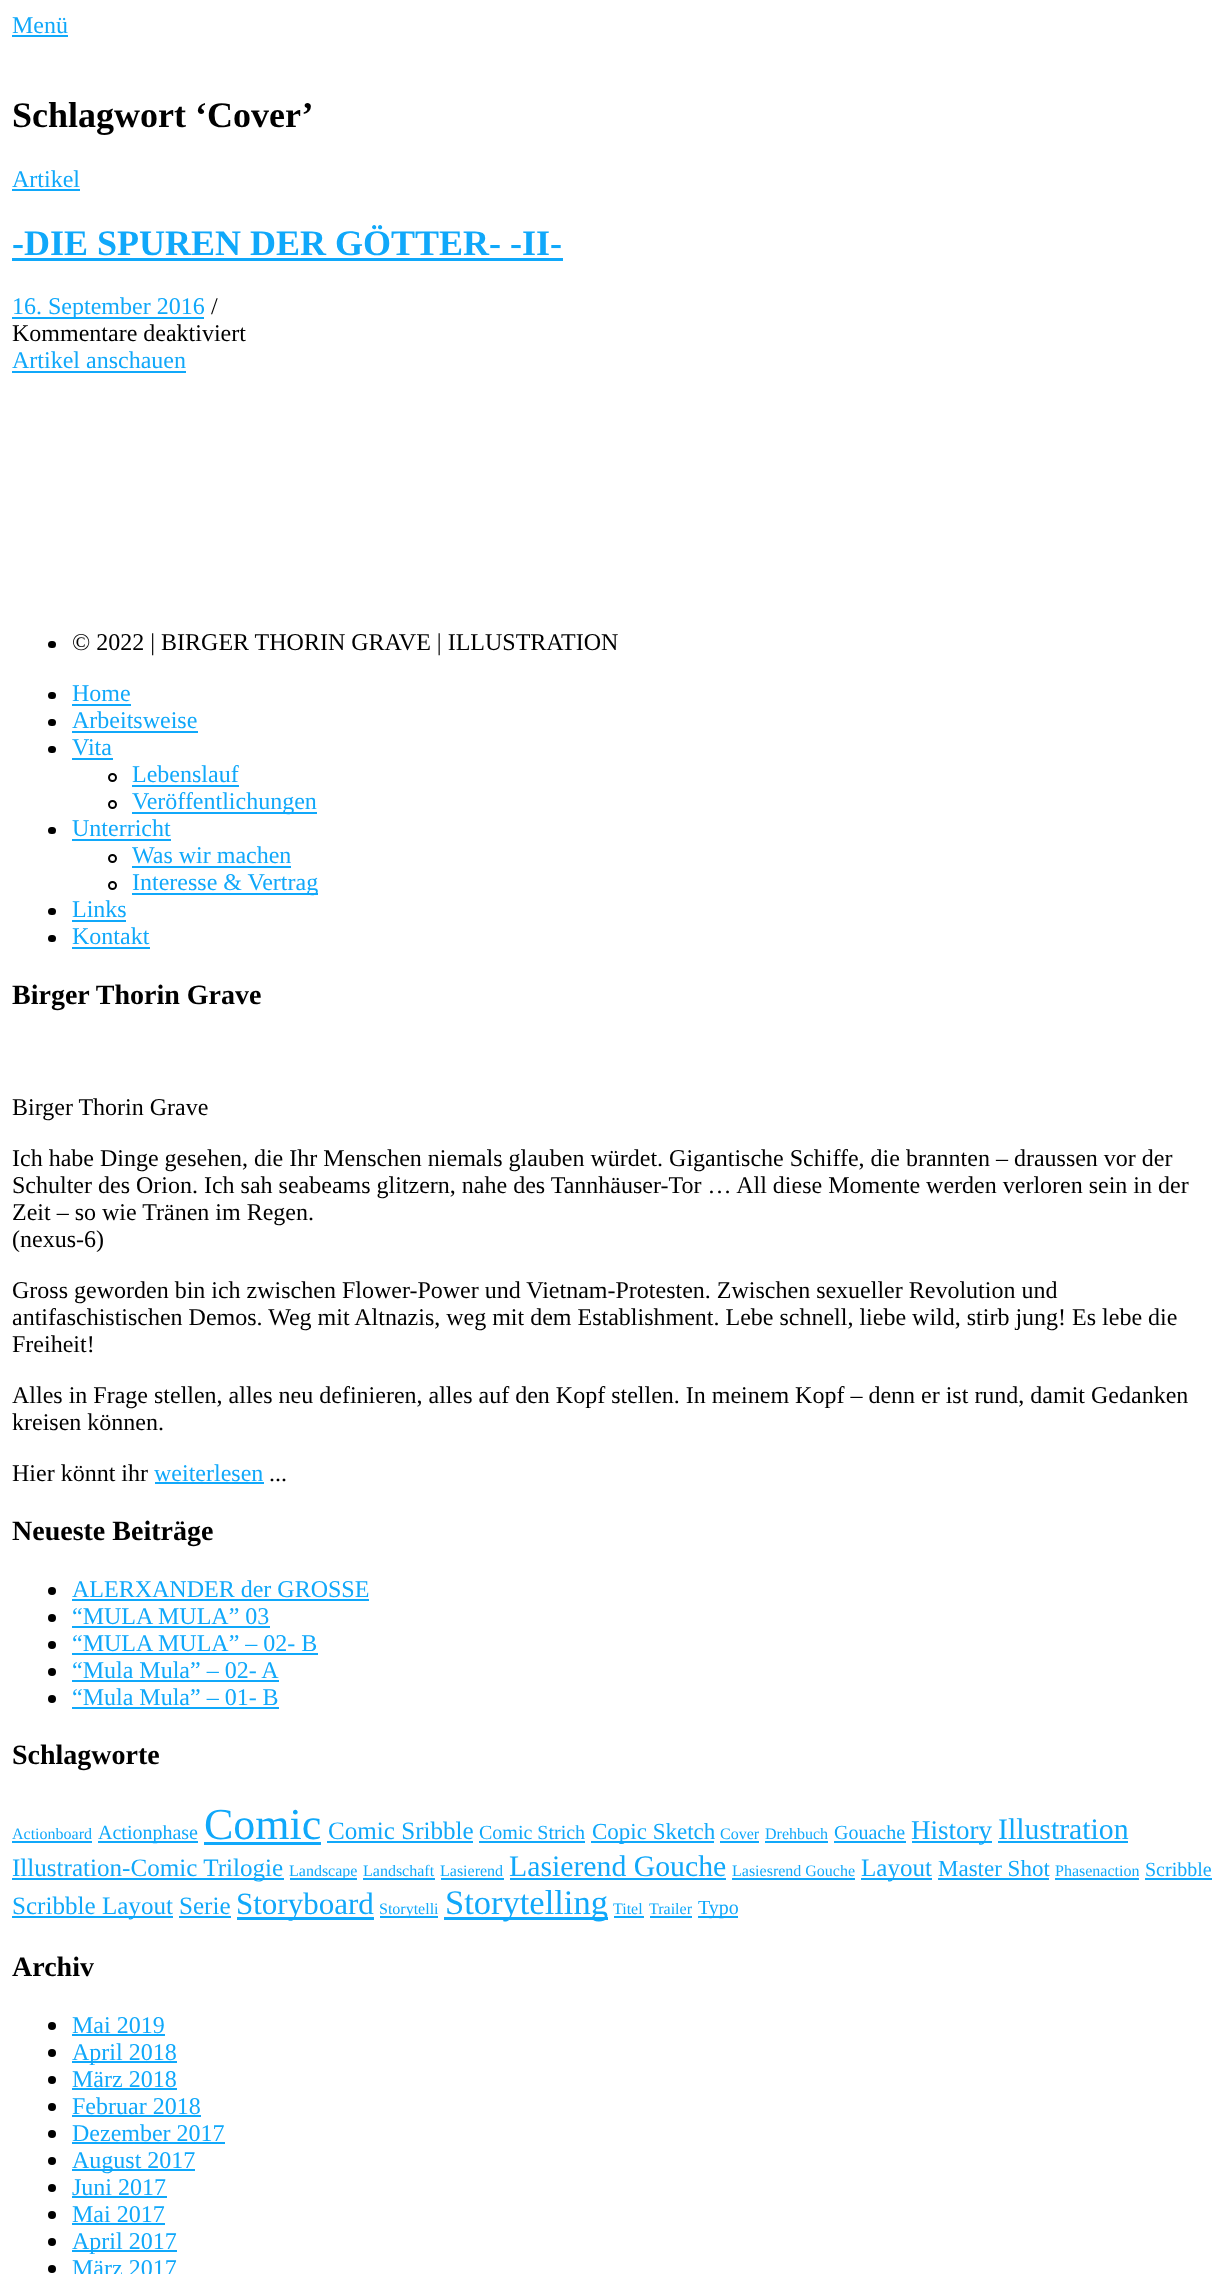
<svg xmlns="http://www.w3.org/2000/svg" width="1232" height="2274">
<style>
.a{font:24px Liberation Serif;fill:#10a8fa}
.b{font:bold 36px Liberation Serif;fill:#000}
.c{font:bold 36px Liberation Serif;fill:#10a8fa}
.d{font:24px Liberation Serif;fill:#000}
.e{font:bold 28px Liberation Serif;fill:#000}
.f{font:16px Liberation Serif;fill:#10a8fa}
.g{font:20px Liberation Serif;fill:#10a8fa}
.h{font:44px Liberation Serif;fill:#10a8fa}
.i{font:25.1px Liberation Serif;fill:#10a8fa}
.j{font:23px Liberation Serif;fill:#10a8fa}
.k{font:27px Liberation Serif;fill:#10a8fa}
.l{font:29.75px Liberation Serif;fill:#10a8fa}
.m{font:31px Liberation Serif;fill:#10a8fa}
.n{font:34.5px Liberation Serif;fill:#10a8fa}
</style>
<rect width="100%" height="100%" fill="#fff"/>
<path fill="#10a8fa" d="M12 35h56v2H12z"/>
<path fill="#10a8fa" d="M12 189h68v2H12z"/>
<path fill="#10a8fa" d="M12 258h551v3H12z"/>
<path fill="#10a8fa" d="M12 317h192v2H12z"/>
<path fill="#10a8fa" d="M12 371h174v2H12z"/>
<rect fill="#000" x="48" y="641" width="8" height="7" rx="3.5"/>
<rect fill="#000" x="48" y="692" width="8" height="7" rx="3.5"/>
<path fill="#10a8fa" d="M72 704h59v2H72z"/>
<rect fill="#000" x="48" y="719" width="8" height="7" rx="3.5"/>
<path fill="#10a8fa" d="M72 731h126v2H72z"/>
<rect fill="#000" x="48" y="746" width="8" height="7" rx="3.5"/>
<path fill="#10a8fa" d="M72 758h41v2H72z"/>
<circle fill="none" stroke="#000" stroke-width="2" cx="112.5" cy="777.5" r="3.5"/>
<path fill="#10a8fa" d="M132 785h107v2H132z"/>
<circle fill="none" stroke="#000" stroke-width="2" cx="112.5" cy="804.5" r="3.5"/>
<path fill="#10a8fa" d="M132 812h185v2H132z"/>
<rect fill="#000" x="48" y="827" width="8" height="7" rx="3.5"/>
<path fill="#10a8fa" d="M72 839h99v2H72z"/>
<circle fill="none" stroke="#000" stroke-width="2" cx="112.5" cy="858.5" r="3.5"/>
<path fill="#10a8fa" d="M132 866h159v2H132z"/>
<circle fill="none" stroke="#000" stroke-width="2" cx="112.5" cy="885.5" r="3.5"/>
<path fill="#10a8fa" d="M132 893h186v2H132z"/>
<rect fill="#000" x="48" y="908" width="8" height="7" rx="3.5"/>
<path fill="#10a8fa" d="M72 920h54v2H72z"/>
<rect fill="#000" x="48" y="935" width="8" height="7" rx="3.5"/>
<path fill="#10a8fa" d="M72 947h78v2H72z"/>
<path fill="#10a8fa" d="M155 1482h109v2H155z"/>
<circle fill="#000" cx="52" cy="1591" r="4"/>
<path fill="#10a8fa" d="M72 1599h297v2H72z"/>
<circle fill="#000" cx="52" cy="1618" r="4"/>
<path fill="#10a8fa" d="M72 1626h198v2H72z"/>
<circle fill="#000" cx="52" cy="1645" r="4"/>
<path fill="#10a8fa" d="M72 1653h246v2H72z"/>
<circle fill="#000" cx="52" cy="1672" r="4"/>
<path fill="#10a8fa" d="M72 1680h207v2H72z"/>
<circle fill="#000" cx="52" cy="1699" r="4"/>
<path fill="#10a8fa" d="M72 1707h207v2H72z"/>
<path fill="#10a8fa" d="M12 1841h80v2H12z"/>
<path fill="#10a8fa" d="M98 1841h100v2H98z"/>
<path fill="#10a8fa" d="M204 1842h117v3H204z"/>
<path fill="#10a8fa" d="M327 1841h146v2H327z"/>
<path fill="#10a8fa" d="M479 1841h106v2H479z"/>
<path fill="#10a8fa" d="M591 1841h123v2H591z"/>
<path fill="#10a8fa" d="M720 1841h39v2H720z"/>
<path fill="#10a8fa" d="M765 1841h63v2H765z"/>
<path fill="#10a8fa" d="M834 1841h72v2H834z"/>
<path fill="#10a8fa" d="M912 1841h80v2H912z"/>
<path fill="#10a8fa" d="M998 1841h130v2H998z"/>
<path fill="#10a8fa" d="M12 1878h272v2H12z"/>
<path fill="#10a8fa" d="M290 1878h67v2H290z"/>
<path fill="#10a8fa" d="M363 1878h72v2H363z"/>
<path fill="#10a8fa" d="M441 1878h63v2H441z"/>
<path fill="#10a8fa" d="M510 1878h216v2H510z"/>
<path fill="#10a8fa" d="M732 1878h123v2H732z"/>
<path fill="#10a8fa" d="M861 1878h71v2H861z"/>
<path fill="#10a8fa" d="M938 1878h111v2H938z"/>
<path fill="#10a8fa" d="M1055 1878h84v2H1055z"/>
<path fill="#10a8fa" d="M1145 1878h67v2H1145z"/>
<path fill="#10a8fa" d="M12 1916h161v2H12z"/>
<path fill="#10a8fa" d="M179 1916h52v2H179z"/>
<path fill="#10a8fa" d="M237 1917h137v3H237z"/>
<path fill="#10a8fa" d="M380 1916h58v2H380z"/>
<path fill="#10a8fa" d="M444 1917h164v3H444z"/>
<path fill="#10a8fa" d="M614 1916h30v2H614z"/>
<path fill="#10a8fa" d="M650 1916h42v2H650z"/>
<path fill="#10a8fa" d="M698 1916h40v2H698z"/>
<circle fill="#000" cx="52" cy="2026" r="4"/>
<path fill="#10a8fa" d="M72 2034h93v2H72z"/>
<circle fill="#000" cx="52" cy="2053" r="4"/>
<path fill="#10a8fa" d="M72 2061h105v2H72z"/>
<circle fill="#000" cx="52" cy="2080" r="4"/>
<path fill="#10a8fa" d="M72 2088h105v2H72z"/>
<circle fill="#000" cx="52" cy="2107" r="4"/>
<path fill="#10a8fa" d="M72 2115h129v2H72z"/>
<circle fill="#000" cx="52" cy="2134" r="4"/>
<path fill="#10a8fa" d="M72 2142h153v2H72z"/>
<circle fill="#000" cx="52" cy="2161" r="4"/>
<path fill="#10a8fa" d="M72 2169h123v2H72z"/>
<circle fill="#000" cx="52" cy="2188" r="4"/>
<path fill="#10a8fa" d="M72 2196h95v2H72z"/>
<circle fill="#000" cx="52" cy="2215" r="4"/>
<path fill="#10a8fa" d="M72 2223h93v2H72z"/>
<circle fill="#000" cx="52" cy="2242" r="4"/>
<path fill="#10a8fa" d="M72 2250h105v2H72z"/>
<circle fill="#000" cx="52" cy="2269" r="4"/>
<text class="a" x="12" y="33">Menü</text>
<text class="b" x="12" y="127">Schlagwort ‘Cover’</text>
<text class="a" x="12" y="187">Artikel</text>
<text class="c" x="12" y="255">-DIE SPUREN DER GÖTTER- -II-</text>
<text class="a" x="12" y="314">16. September 2016</text>
<text class="d" x="211" y="314">/</text>
<text class="d" x="12" y="341">Kommentare deaktiviert</text>
<text class="a" x="12" y="368">Artikel anschauen</text>
<text class="d" x="72" y="650">© 2022 | BIRGER THORIN GRAVE | ILLUSTRATION</text>
<text class="a" x="72" y="701">Home</text>
<text class="a" x="72" y="728">Arbeitsweise</text>
<text class="a" x="72" y="755">Vita</text>
<text class="a" x="132" y="782">Lebenslauf</text>
<text class="a" x="132" y="809">Veröffentlichungen</text>
<text class="a" x="72" y="836">Unterricht</text>
<text class="a" x="132" y="863">Was wir machen</text>
<text class="a" x="132" y="890">Interesse &amp; Vertrag</text>
<text class="a" x="72" y="917">Links</text>
<text class="a" x="72" y="944">Kontakt</text>
<text class="e" x="12" y="1004">Birger Thorin Grave</text>
<text class="d" x="12" y="1115">Birger Thorin Grave</text>
<text class="d" x="12" y="1166">Ich habe Dinge gesehen, die Ihr Menschen niemals glauben würdet. Gigantische Schiffe, die brannten – draussen vor der</text>
<text class="d" x="12" y="1193">Schulter des Orion. Ich sah seabeams glitzern, nahe des Tannhäuser-Tor … All diese Momente werden verloren sein in der</text>
<text class="d" x="12" y="1220">Zeit – so wie Tränen im Regen.</text>
<text class="d" x="12" y="1247">(nexus-6)</text>
<text class="d" x="12" y="1298">Gross geworden bin ich zwischen Flower-Power und Vietnam-Protesten. Zwischen sexueller Revolution und</text>
<text class="d" x="12" y="1325">antifaschistischen Demos. Weg mit Altnazis, weg mit dem Establishment. Lebe schnell, liebe wild, stirb jung! Es lebe die</text>
<text class="d" x="12" y="1352">Freiheit!</text>
<text class="d" x="12" y="1403">Alles in Frage stellen, alles neu definieren, alles auf den Kopf stellen. In meinem Kopf – denn er ist rund, damit Gedanken</text>
<text class="d" x="12" y="1430">kreisen können.</text>
<text class="d" x="12" y="1481">Hier könnt ihr</text>
<text class="a" x="154" y="1481">weiterlesen</text>
<text class="d" x="269" y="1481">...</text>
<text class="e" x="12" y="1540">Neueste Beiträge</text>
<text class="a" x="72" y="1597">ALERXANDER der GROSSE</text>
<text class="a" x="72" y="1624">“MULA MULA” 03</text>
<text class="a" x="72" y="1651">“MULA MULA” – 02- B</text>
<text class="a" x="72" y="1678">“Mula Mula” – 02- A</text>
<text class="a" x="72" y="1705">“Mula Mula” – 01- B</text>
<text class="e" x="12" y="1764">Schlagworte</text>
<text class="f" x="12" y="1839">Actionboard</text>
<text class="g" x="98" y="1839">Actionphase</text>
<text class="h" x="204" y="1839">Comic</text>
<text class="i" x="328" y="1839">Comic Sribble</text>
<text class="g" x="479" y="1839">Comic Strich</text>
<text class="j" x="592" y="1839">Copic Sketch</text>
<text class="f" x="720" y="1839">Cover</text>
<text class="f" x="765" y="1839">Drehbuch</text>
<text class="g" x="834" y="1839">Gouache</text>
<text class="k" x="911" y="1839">History</text>
<text class="l" x="998" y="1839">Illustration</text>
<text class="i" x="12" y="1876">Illustration-Comic Trilogie</text>
<text class="f" x="289" y="1876">Landscape</text>
<text class="f" x="363" y="1876">Landschaft</text>
<text class="f" x="440" y="1876">Lasierend</text>
<text class="l" x="509" y="1876">Lasierend Gouche</text>
<text class="f" x="732" y="1876">Lasiesrend Gouche</text>
<text class="i" x="861" y="1876">Layout</text>
<text class="j" x="938" y="1876">Master Shot</text>
<text class="f" x="1055" y="1876">Phasenaction</text>
<text class="g" x="1145" y="1876">Scribble</text>
<text class="i" x="12" y="1914">Scribble Layout</text>
<text class="i" x="179" y="1914">Serie</text>
<text class="m" x="236" y="1914">Storyboard</text>
<text class="f" x="379" y="1914">Storytelli</text>
<text class="n" x="445" y="1914">Storytelling</text>
<text class="f" x="613" y="1914">Titel</text>
<text class="f" x="649" y="1914">Trailer</text>
<text class="g" x="698" y="1914">Typo</text>
<text class="e" x="12" y="1976">Archiv</text>
<text class="a" x="72" y="2033">Mai 2019</text>
<text class="a" x="72" y="2060">April 2018</text>
<text class="a" x="72" y="2087">März 2018</text>
<text class="a" x="72" y="2114">Februar 2018</text>
<text class="a" x="72" y="2141">Dezember 2017</text>
<text class="a" x="72" y="2168">August 2017</text>
<text class="a" x="72" y="2195">Juni 2017</text>
<text class="a" x="72" y="2222">Mai 2017</text>
<text class="a" x="72" y="2249">April 2017</text>
<text class="a" x="72" y="2276">März 2017</text>
</svg>
